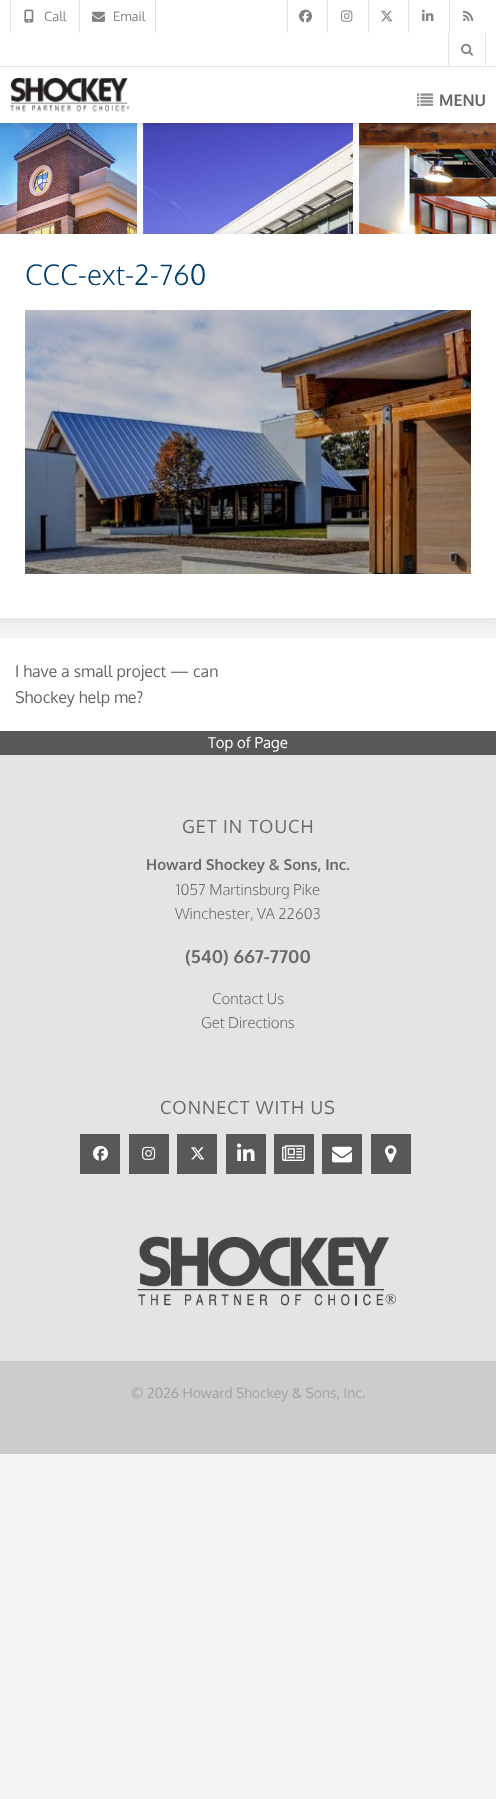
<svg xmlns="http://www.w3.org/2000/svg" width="496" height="1799">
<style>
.a{font:13px Oxygen;fill:#828386}
.b{font:bold 16px Oxygen;fill:#666}
.c{font:300 28px Oxygen;fill:#003d6b}
.d{font:16px Oxygen;fill:#666}
.e{font:15px Oxygen;fill:#fff}
.f{font:18px Oxygen;letter-spacing:1px;fill:#696a6c}
.g{font:bold 15px Oxygen;fill:#696a6c}
.h{font:300 15px Oxygen;fill:#696a6c}
.i{font:bold 18px Oxygen;fill:#696a6c}
.j{font:14px Oxygen;fill:#a3a2a2}
</style>
<rect width="100%" height="100%" fill="#f3f3f3"/>
<image href="11.png" x="0" y="123" width="496" height="111"/>
<path fill="#0000001a" filter="blur(2px)" d="M0 3h496v123H0z"/>
<path fill="#fff" d="M0 0h496v123H0z"/>
<path fill="#e4e4e4" d="M0 66h496v1H0z"/>
<path fill="#e4e4e4" d="M10 0h1v33H10z"/>
<image href="1.png" x="24" y="9" width="10" height="14"/>
<path fill="#e4e4e4" d="M155 0h1v33H155z"/>
<path fill="#e4e4e4" d="M79 0h1v33H79z"/>
<image href="2.png" x="92" y="11" width="13" height="11"/>
<path fill="#e4e4e4" d="M287 0h1v33H287z"/>
<image href="3.png" x="299" y="9" width="13" height="14"/>
<path fill="#e4e4e4" d="M327 0h1v33H327z"/>
<image href="4.png" x="341" y="10" width="12" height="12"/>
<path fill="#e4e4e4" d="M368 0h1v33H368z"/>
<image href="5.png" x="381" y="10" width="12" height="12"/>
<path fill="#e4e4e4" d="M408 0h1v33H408z"/>
<image href="6.png" x="422" y="9" width="12" height="12"/>
<path fill="#e4e4e4" d="M449 0h1v33H449z"/>
<image href="7.png" x="463" y="10" width="11" height="11"/>
<path fill="#e4e4e4" d="M485 33h1v33H485z"/>
<path fill="#e4e4e4" d="M448 33h1v33H448z"/>
<image href="8.png" x="461" y="43" width="12" height="13"/>
<image href="9.png" x="10" y="77" width="120" height="35"/>
<image href="10.png" x="417" y="93" width="16" height="13"/>
<path fill="#0000001a" filter="blur(5px)" d="M-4 235h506v384H-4z"/>
<path fill="#fff" d="M0 234h496v384H0z"/>
<image href="12.png" x="25" y="310" width="446" height="264"/>
<path fill="#fff" d="M0 638h496v93H0z"/>
<path fill="#585858" d="M0 731h496v24H0z"/>
<path fill="#e4e4e4" d="M0 755h496v606H0z"/>
<path fill="#585858" d="M80 1134h40v40H80z"/>
<image href="13.png" x="93" y="1145" width="15" height="16"/>
<path fill="#585858" d="M129 1134h40v40H129z"/>
<image href="14.png" x="142" y="1146" width="14" height="14"/>
<path fill="#585858" d="M177 1134h40v40H177z"/>
<image href="15.png" x="191" y="1147" width="14" height="13"/>
<path fill="#585858" d="M226 1134h40v40H226z"/>
<image href="16.png" x="237" y="1143" width="18" height="18"/>
<path fill="#585858" d="M274 1134h40v40H274z"/>
<image href="17.png" x="282" y="1145" width="23" height="16"/>
<path fill="#585858" d="M322 1134h40v40H322z"/>
<image href="18.png" x="332" y="1146" width="20" height="17"/>
<path fill="#585858" d="M371 1134h40v40H371z"/>
<image href="19.png" x="385" y="1145" width="12" height="18"/>
<image href="20.png" x="137" y="1236" width="259" height="70"/>
<path fill="#ccc" d="M0 1361h496v93H0z"/>
<text class="a" x="44" y="21">Call</text>
<text class="a" x="113" y="21">Email</text>
<text class="b" x="439" y="106">MENU</text>
<text class="c" x="25" y="285">CCC-ext-2-760</text>
<text class="d" x="15" y="677">I have a small project — can</text>
<text class="d" x="15" y="703">Shockey help me?</text>
<text class="e" x="208" y="748">Top of Page</text>
<text class="f" x="182" y="833">GET IN TOUCH</text>
<text class="g" x="146" y="870">Howard Shockey &amp; Sons, Inc.</text>
<text class="h" x="176" y="895">1057 Martinsburg Pike</text>
<text class="h" x="175" y="919">Winchester, VA 22603</text>
<text class="i" x="185" y="963">(540) 667-7700</text>
<text class="h" x="212" y="1004">Contact Us</text>
<text class="h" x="201" y="1028">Get Directions</text>
<text class="f" x="160" y="1114">CONNECT WITH US</text>
<text class="j" x="131" y="1398">© 2026 Howard Shockey &amp; Sons, Inc.</text>
</svg>
